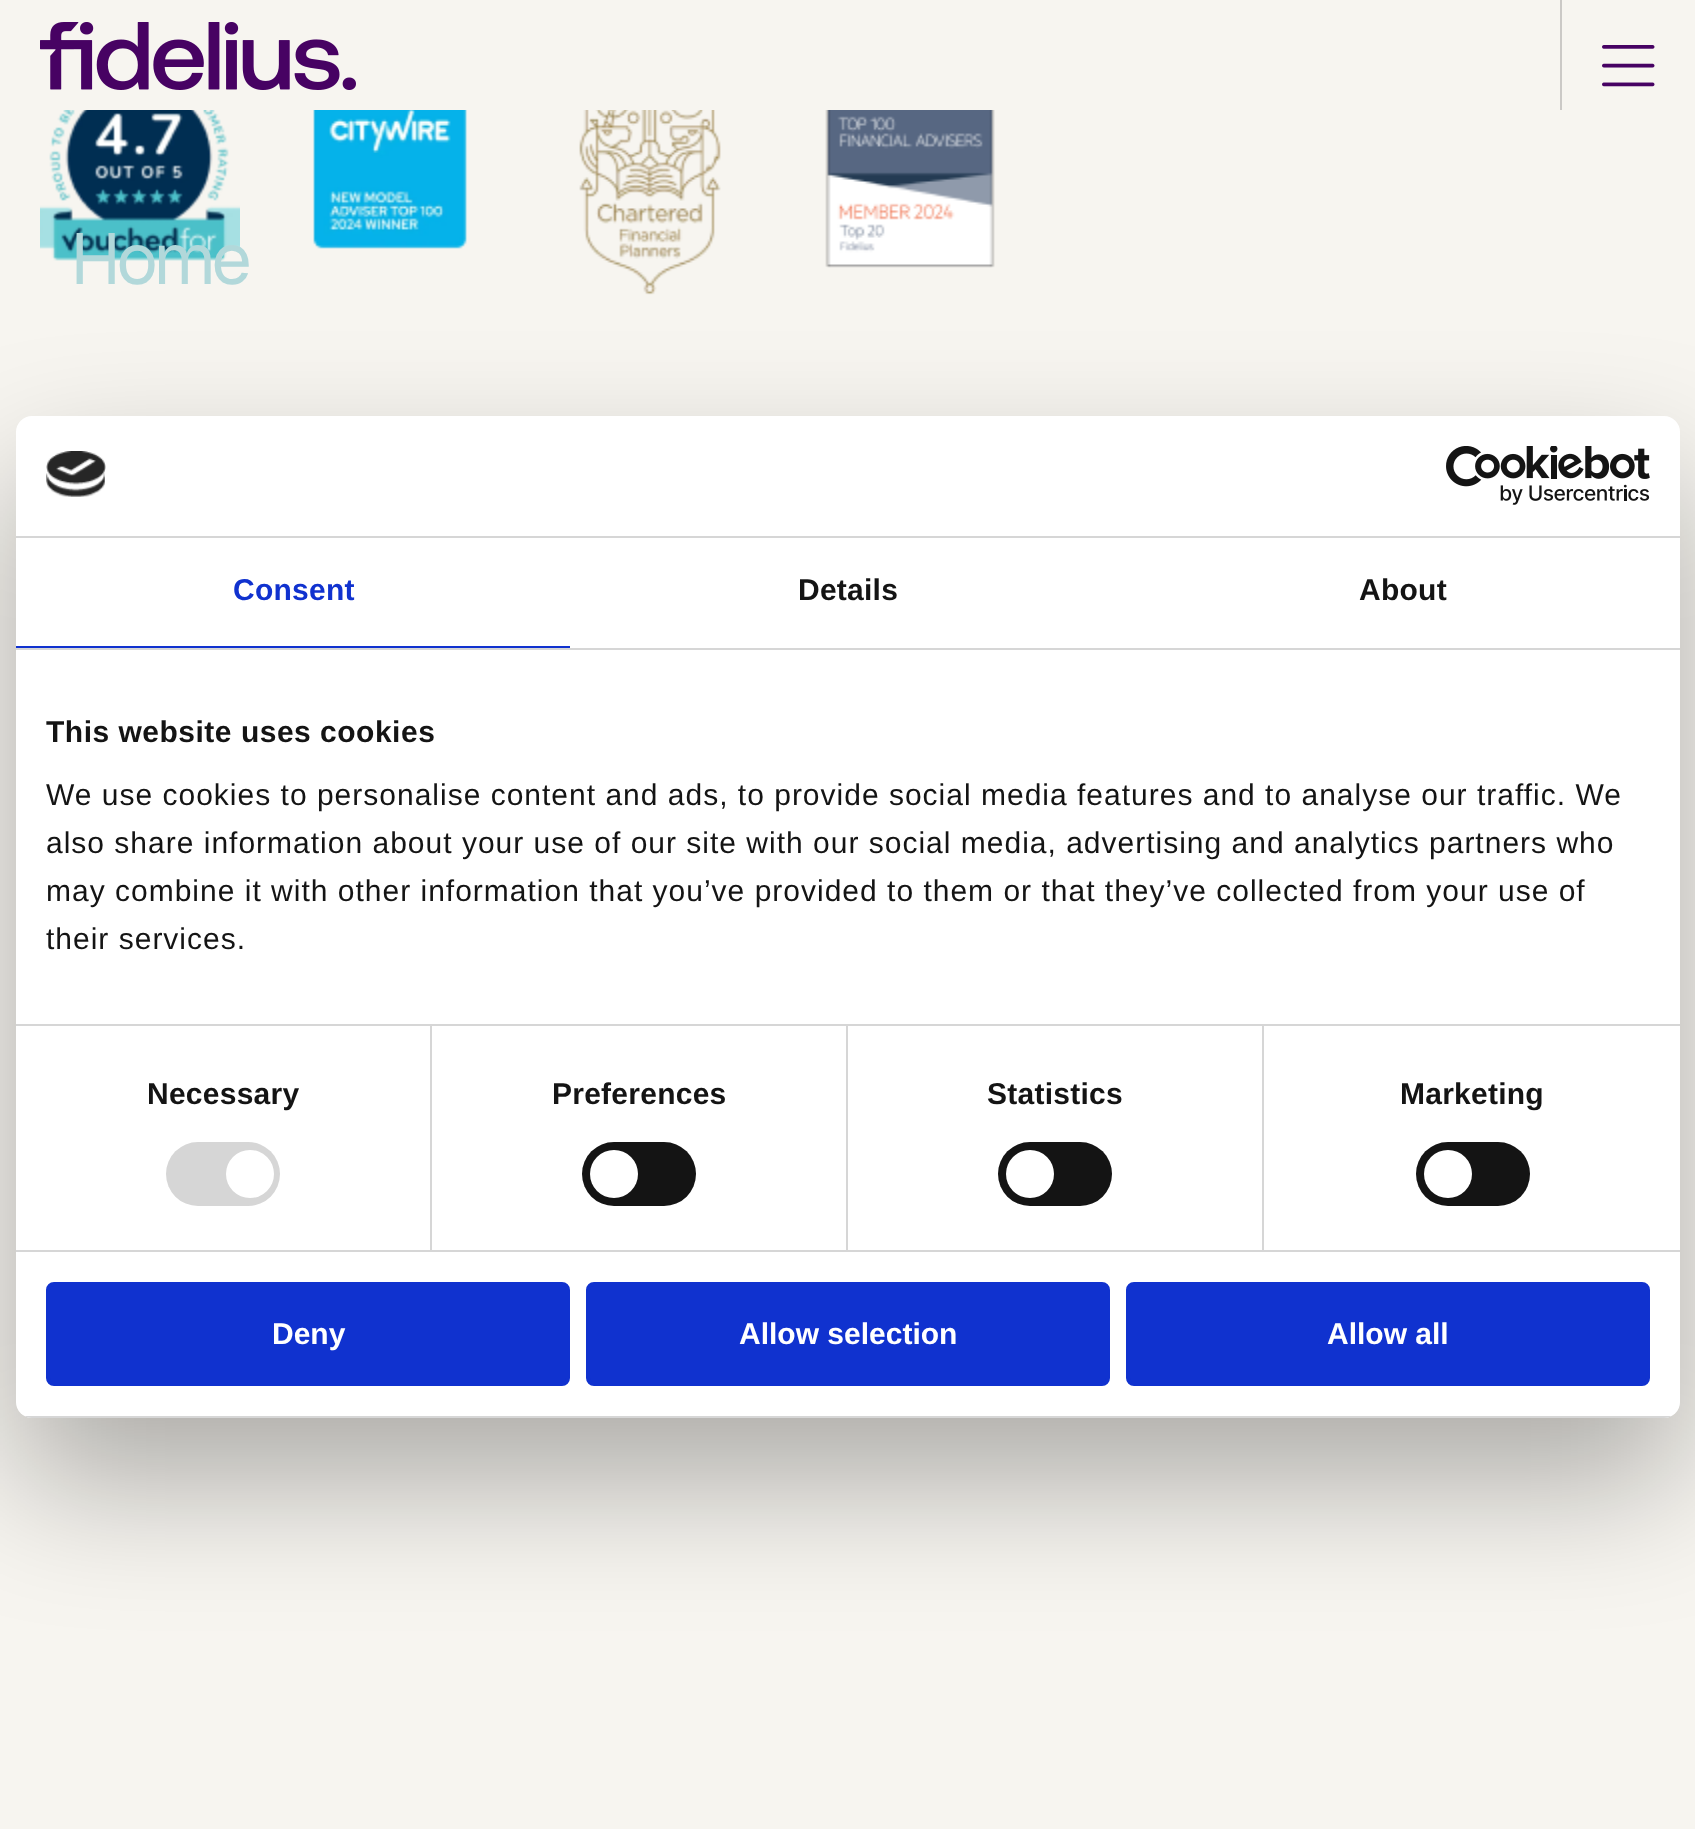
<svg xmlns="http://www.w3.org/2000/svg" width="1695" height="1829">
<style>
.a{font:72px Geist;letter-spacing:-4px;fill:#b2d8da}
.b{font:bold 30px Liberation Sans;letter-spacing:0.25px;fill:#1032cf}
.c{font:bold 30px Liberation Sans;letter-spacing:0.25px;fill:#141414}
.d{font:bold 30px Liberation Sans;letter-spacing:0.5px;fill:#141414}
.e{font:30px Liberation Sans;letter-spacing:1px;fill:#141414}
.f{font:bold 30px Liberation Sans;fill:#fff}
</style>
<defs>
<clipPath id="clip1"><rect x="16" y="416" width="1664" height="1002" rx="16"/></clipPath>
</defs>
<rect width="100%" height="100%" fill="#f7f5f0"/>
<image href="1.png" x="40" y="110" width="200" height="151"/>
<image href="2.png" x="313" y="110" width="154" height="139"/>
<image href="3.png" x="579" y="110" width="142" height="185"/>
<image href="4.png" x="825" y="110" width="170" height="158"/>
<image href="5.png" x="40" y="22" width="316" height="68"/>
<path fill="#cbc9c6" d="M1560 0h2v110H1560z"/>
<image href="6.png" x="1602" y="45" width="53" height="42"/>
<rect fill="#0000004d" filter="blur(68px)" x="16" y="480" width="1664" height="1002" rx="16"/>
<rect fill="#fff" x="16" y="416" width="1664" height="1002" rx="16"/>
<path fill="#d6d6d6" d="M16 536h1664v2H16z"/>
<image href="7.png" x="46" y="451" width="60" height="46"/>
<image href="8.png" x="1446" y="446" width="204" height="59"/>
<path fill="#d6d6d6" d="M16 648h1664v2H16z"/>
<path fill="#1032cf" d="M16 646h554v2H16z"/>
<path fill="#d6d6d6" d="M16 1024h1664v2H16z"/>
<path fill="#d6d6d6" d="M16 1250h1664v2H16z"/>
<path fill="#d6d6d6" d="M430 1026h2v224H430z"/>
<rect fill="#d6d6d6" x="166" y="1142" width="114" height="64" rx="32"/>
<circle fill="#fff" cx="250" cy="1174" r="24"/>
<path fill="#d6d6d6" d="M846 1026h2v224H846z"/>
<rect fill="#141414" x="582" y="1142" width="114" height="64" rx="32"/>
<circle fill="#fff" cx="614" cy="1174" r="24"/>
<path fill="#d6d6d6" d="M1262 1026h2v224H1262z"/>
<rect fill="#141414" x="998" y="1142" width="114" height="64" rx="32"/>
<circle fill="#fff" cx="1030" cy="1174" r="24"/>
<rect fill="#141414" x="1416" y="1142" width="114" height="64" rx="32"/>
<circle fill="#fff" cx="1448" cy="1174" r="24"/>
<g clip-path="url(#clip1)">
<path fill="#d6d6d6" d="M16 1416h1664v2H16z"/>
</g>
<rect fill="#1032cf" stroke="#1032cf" stroke-width="4" x="48" y="1284" width="520" height="100" rx="6"/>
<rect fill="#1032cf" stroke="#1032cf" stroke-width="4" x="588" y="1284" width="520" height="100" rx="6"/>
<rect fill="#1032cf" stroke="#1032cf" stroke-width="4" x="1128" y="1284" width="520" height="100" rx="6"/>
<text class="a" x="70" y="284">Home</text>
<text class="b" x="233" y="600">Consent</text>
<text class="c" x="798" y="600">Details</text>
<text class="c" x="1359" y="600">About</text>
<text class="d" x="46" y="742">This website uses cookies</text>
<text class="e" x="46" y="805">We use cookies to personalise content and ads, to provide social media features and to analyse our traffic. We</text>
<text class="e" x="46" y="853">also share information about your use of our site with our social media, advertising and analytics partners who</text>
<text class="e" x="46" y="901">may combine it with other information that you’ve provided to them or that they’ve collected from your use of</text>
<text class="e" x="46" y="949">their services.</text>
<text class="c" x="147" y="1104">Necessary</text>
<text class="c" x="552" y="1104">Preferences</text>
<text class="c" x="987" y="1104">Statistics</text>
<text class="c" x="1400" y="1104">Marketing</text>
<text class="f" x="272" y="1344">Deny</text>
<text class="f" x="739" y="1344">Allow selection</text>
<text class="f" x="1327" y="1344">Allow all</text>
</svg>
